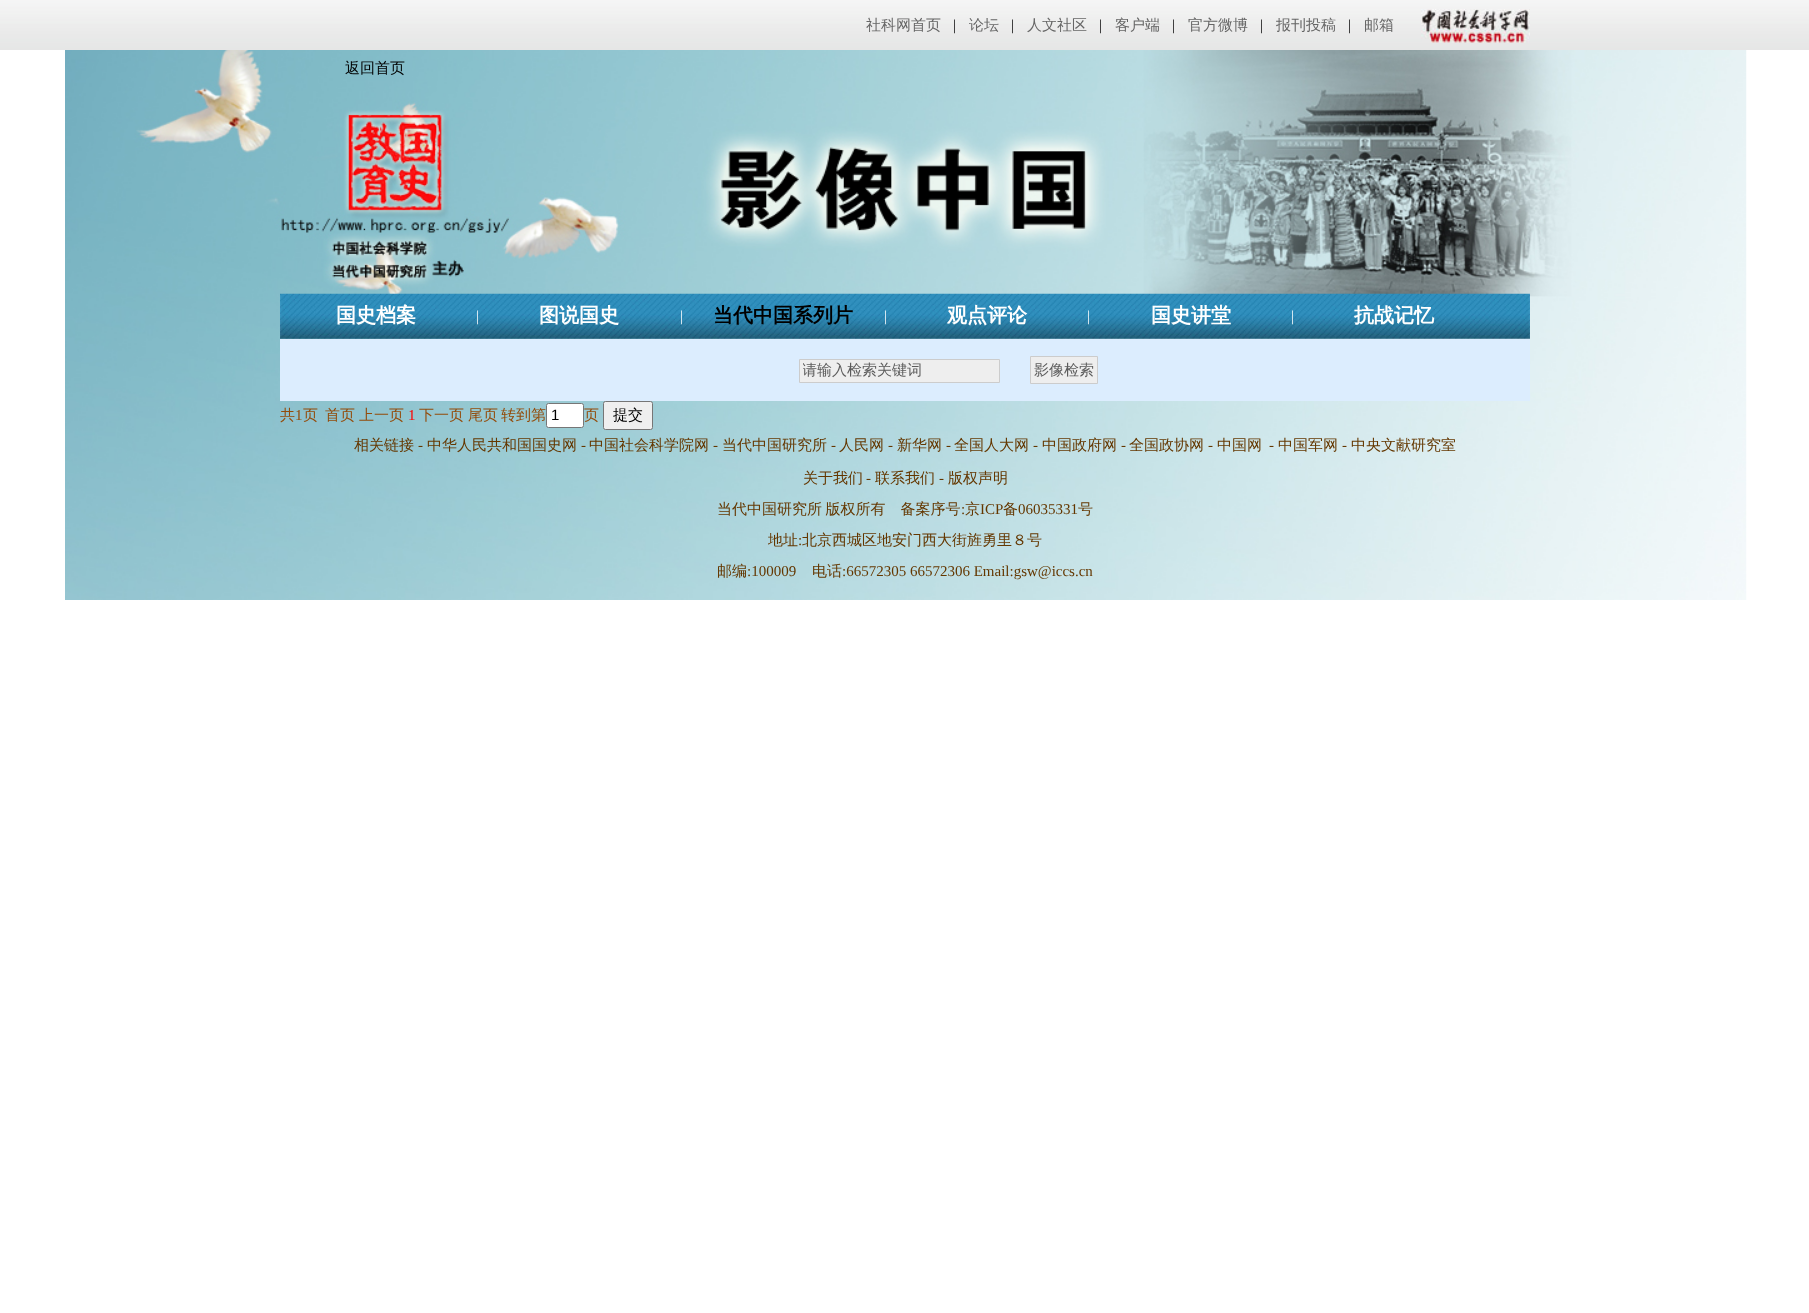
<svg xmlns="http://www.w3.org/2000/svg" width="1809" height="1313">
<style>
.a{font:500 15px WenQuanYi Zen Hei;fill:#666}
.b{font:15px Liberation Serif;fill:#000}
.c{font:500 15px WenQuanYi Zen Hei;fill:#000}
.d{font:bold 20px WenQuanYi Zen Hei;fill:#fff}
.e{font:15px Liberation Serif;fill:#fff}
.f{font:bold 20px WenQuanYi Zen Hei;fill:#000}
.g{font:500 15px WenQuanYi Zen Hei;fill:#5c5c5c}
.h{font:500 15px WenQuanYi Zen Hei;fill:#934b0a}
.i{font:15px Liberation Serif;fill:#934b0a}
.j{font:15px Liberation Serif;fill:#f00}
.k{font:15px Liberation Sans;fill:#000}
.l{font:500 15px WenQuanYi Zen Hei;fill:#643700}
.m{font:15px Liberation Serif;fill:#643700}
</style>
<defs>
<clipPath id="clip1"><path d="M803 360h193v21H803z"/></clipPath>
</defs>
<rect width="100%" height="100%" fill="#fff"/>
<image href="1.png" x="0" y="0" width="1809" height="50"/>
<image href="2.png" x="1421" y="9" width="109" height="34"/>
<image href="3.png" x="65" y="50" width="1682" height="550"/>
<image href="4.png" x="280" y="293" width="1250" height="46"/>
<path fill="#dcedfe" d="M280 339h1250v62H280z"/>
<path fill="#eee" stroke="#ccc" d="M799.5 359.5h200v23H799.5z"/>
<path fill="#eee" stroke="#ccc" d="M1030.5 356.5h67v27H1030.5z"/>
<rect fill="#fff" stroke="#767676" x="546.5" y="403.5" width="37" height="24" rx="2"/>
<rect fill="#efefef" stroke="#767676" x="603.5" y="401.5" width="49" height="28" rx="2"/>
<text class="a" x="866" y="30">社科网首页</text>
<text class="b" x="953" y="30">|</text>
<text class="a" x="969" y="30">论坛</text>
<text class="b" x="1011" y="30">|</text>
<text class="a" x="1027" y="30">人文社区</text>
<text class="b" x="1099" y="30">|</text>
<text class="a" x="1115" y="30">客户端</text>
<text class="b" x="1172" y="30">|</text>
<text class="a" x="1188" y="30">官方微博</text>
<text class="b" x="1260" y="30">|</text>
<text class="a" x="1276" y="30">报刊投稿</text>
<text class="b" x="1348" y="30">|</text>
<text class="a" x="1364" y="30">邮箱</text>
<text class="c" x="345" y="73">返回首页</text>
<text class="d" x="336" y="322">国史档案</text>
<text class="e" x="476" y="321">|</text>
<text class="d" x="539" y="322">图说国史</text>
<text class="e" x="680" y="321">|</text>
<text class="f" x="713" y="322">当代中国系列片</text>
<text class="e" x="884" y="321">|</text>
<text class="d" x="947" y="322">观点评论</text>
<text class="e" x="1087" y="321">|</text>
<text class="d" x="1151" y="322">国史讲堂</text>
<text class="e" x="1291" y="321">|</text>
<text class="d" x="1354" y="322">抗战记忆</text>
<g clip-path="url(#clip1)">
<text class="g" x="802" y="375">请输入检索关键词</text>
</g>
<text class="g" x="1034" y="375">影像检索</text>
<text class="h" x="280" y="420">共</text>
<text class="i" x="295" y="420">1</text>
<text class="h" x="303" y="420">页</text>
<text class="h" x="325" y="420">首页</text>
<text class="h" x="359" y="420">上一页</text>
<text class="j" x="408" y="420">1</text>
<text class="h" x="419" y="420">下一页</text>
<text class="h" x="468" y="420">尾页</text>
<text class="h" x="501" y="420">转到第</text>
<text class="k" x="551" y="420">1</text>
<text class="h" x="584" y="420">页</text>
<text class="c" x="613" y="420">提交</text>
<text class="l" x="354" y="450">相关链接</text>
<text class="m" x="418" y="450">-</text>
<text class="l" x="427" y="450">中华人民共和国国史网</text>
<text class="m" x="581" y="450">-</text>
<text class="l" x="589" y="450">中国社会科学院网</text>
<text class="m" x="713" y="450">-</text>
<text class="l" x="722" y="450">当代中国研究所</text>
<text class="m" x="831" y="450">-</text>
<text class="l" x="839" y="450">人民网</text>
<text class="m" x="888" y="450">-</text>
<text class="l" x="897" y="450">新华网</text>
<text class="m" x="946" y="450">-</text>
<text class="l" x="954" y="450">全国人大网</text>
<text class="m" x="1033" y="450">-</text>
<text class="l" x="1042" y="450">中国政府网</text>
<text class="m" x="1121" y="450">-</text>
<text class="l" x="1129" y="450">全国政协网</text>
<text class="m" x="1208" y="450">-</text>
<text class="l" x="1217" y="450">中国网</text>
<text class="m" x="1269" y="450">-</text>
<text class="l" x="1278" y="450">中国军网</text>
<text class="m" x="1342" y="450">-</text>
<text class="l" x="1351" y="450">中央文献研究室</text>
<text class="l" x="803" y="483">关于我们</text>
<text class="m" x="866" y="483">-</text>
<text class="l" x="875" y="483">联系我们</text>
<text class="m" x="939" y="483">-</text>
<text class="l" x="948" y="483">版权声明</text>
<text class="l" x="717" y="514" word-spacing="-1">当代中国研究所 版权所有　备案序号</text>
<text class="m" x="961" y="514">:</text>
<text class="l" x="965" y="514">京</text>
<text class="m" x="980" y="514">ICP</text>
<text class="l" x="1003" y="514">备</text>
<text class="m" x="1018" y="514">06035331</text>
<text class="l" x="1078" y="514">号</text>
<text class="l" x="768" y="545">地址</text>
<text class="m" x="798" y="545">:</text>
<text class="l" x="802" y="545">北京西城区地安门西大街旌勇里８号</text>
<text class="l" x="717" y="576">邮编</text>
<text class="m" x="747" y="576">:100009</text>
<text class="l" x="812" y="576">电话</text>
<text class="m" x="842" y="576">:66572305 66572306 Email:gsw@iccs.cn</text>
</svg>
